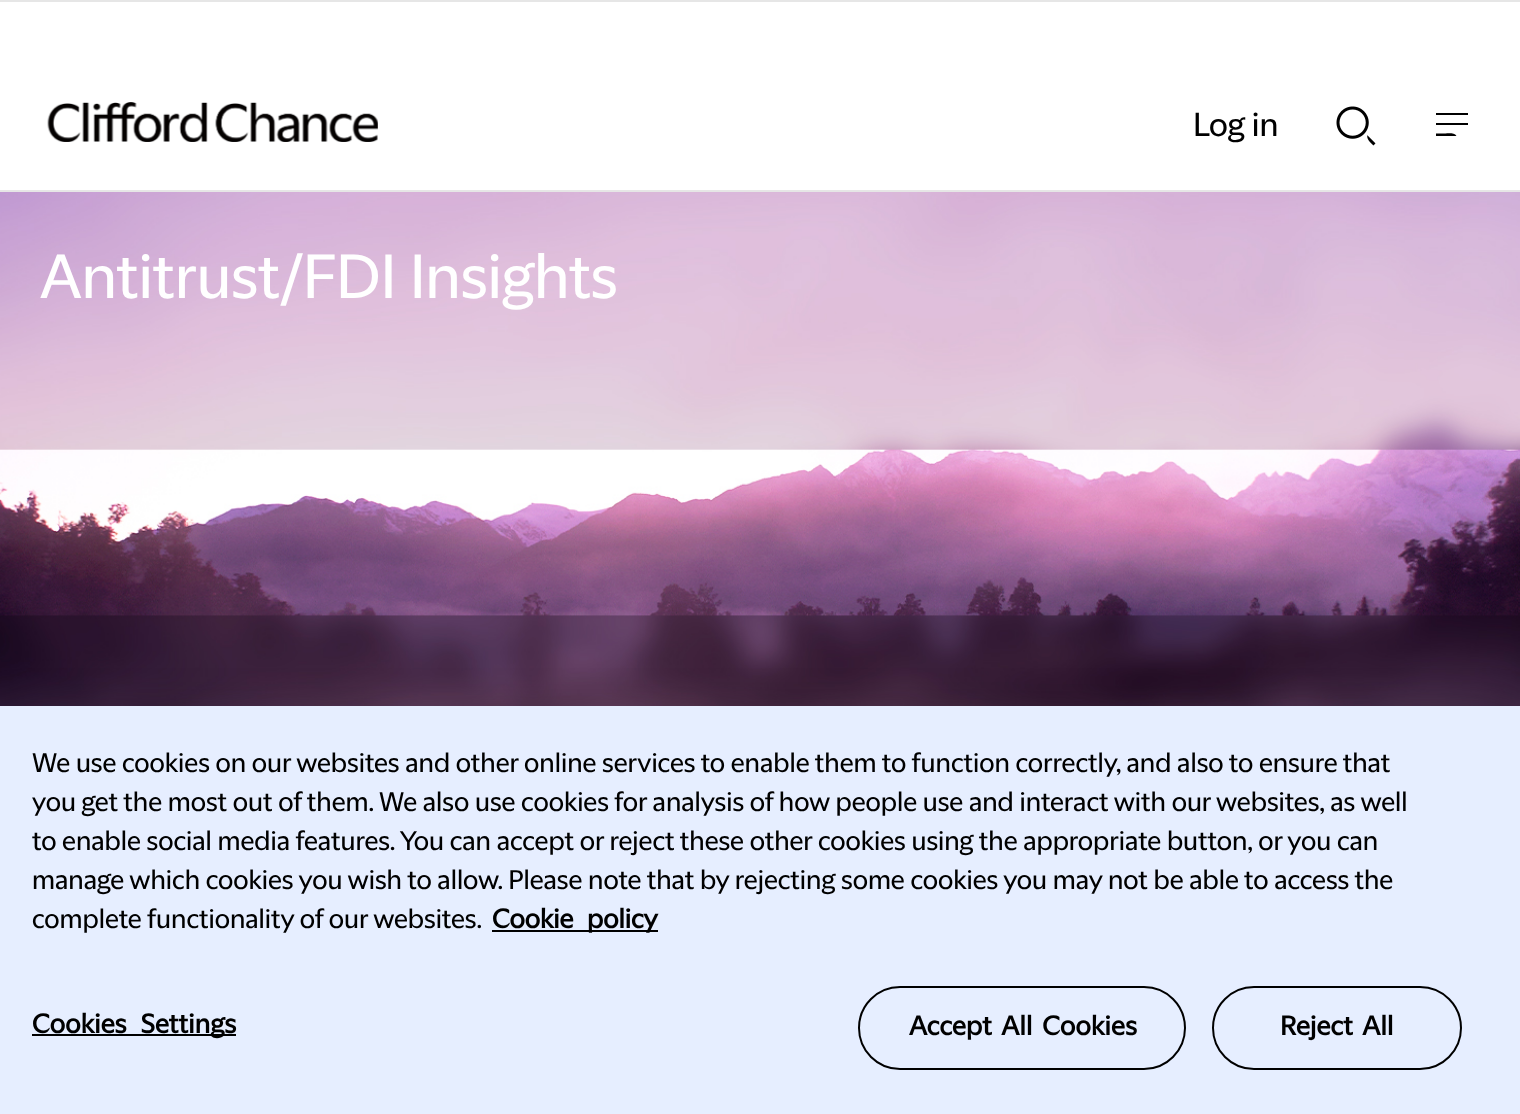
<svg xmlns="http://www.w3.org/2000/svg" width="1520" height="1114">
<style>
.a{font:32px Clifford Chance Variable;fill:#000}
.b{font:60px Clifford Chance Variable;fill:#fff}
.c{font:26.02px Clifford Chance Variable;fill:#000}
.d{font:bold 26.02px Clifford Chance Variable;fill:#000}
.e{font:bold 26.02px Clifford Chance Variable;letter-spacing:0.25px;fill:#000}
</style>
<rect width="100%" height="100%" fill="#fff"/>
<path fill="#e6e6e6" d="M0 0h1520v2H0z"/>
<path fill="#e6e6e6" d="M0 190h1520v2H0z"/>
<image href="1.png" x="47" y="102" width="331" height="40"/>
<image href="2.png" x="1336" y="106" width="40" height="40"/>
<path fill="#000" d="M1436 136h20.5c-2-3.5-8.5-2.5-11-2.5h-9.5z"/>
<path fill="#000" d="M1436 123h32v2H1436z"/>
<path fill="#000" d="M1436 113h32v2H1436z"/>
<image href="3.png" x="0" y="192" width="1520" height="514"/>
<path fill="#00000033" filter="blur(18px)" d="M0 706h1520v408H0z"/>
<path fill="#e6eeff" d="M0 706h1520v408H0z"/>
<path fill="#000" d="M492 930h166v2H492z"/>
<path fill="#000" d="M32 1034h204v2H32z"/>
<rect fill="none" stroke="#000" stroke-width="2" x="859" y="987" width="326" height="82" rx="41"/>
<rect fill="none" stroke="#000" stroke-width="2" x="1213" y="987" width="248" height="82" rx="41"/>
<text class="a" x="1193" y="136">Log in</text>
<text class="b" x="40" y="298">Antitrust/FDI Insights</text>
<text class="c" x="32" y="772">We use cookies on our websites and other online services to enable them to function correctly, and also to ensure that</text>
<text class="c" x="32" y="811">you get the most out of them. We also use cookies for analysis of how people use and interact with our websites, as well</text>
<text class="c" x="32" y="850">to enable social media features. You can accept or reject these other cookies using the appropriate button, or you can</text>
<text class="c" x="32" y="889">manage which cookies you wish to allow. Please note that by rejecting some cookies you may not be able to access the</text>
<text class="c" x="32" y="928">complete functionality of our websites.</text>
<text class="d" x="492" y="928" word-spacing="8">Cookie policy</text>
<text class="e" x="32" y="1033" word-spacing="8">Cookies Settings</text>
<text class="e" x="909" y="1035" word-spacing="4">Accept All Cookies</text>
<text class="e" x="1280" y="1035" word-spacing="4">Reject All</text>
</svg>
